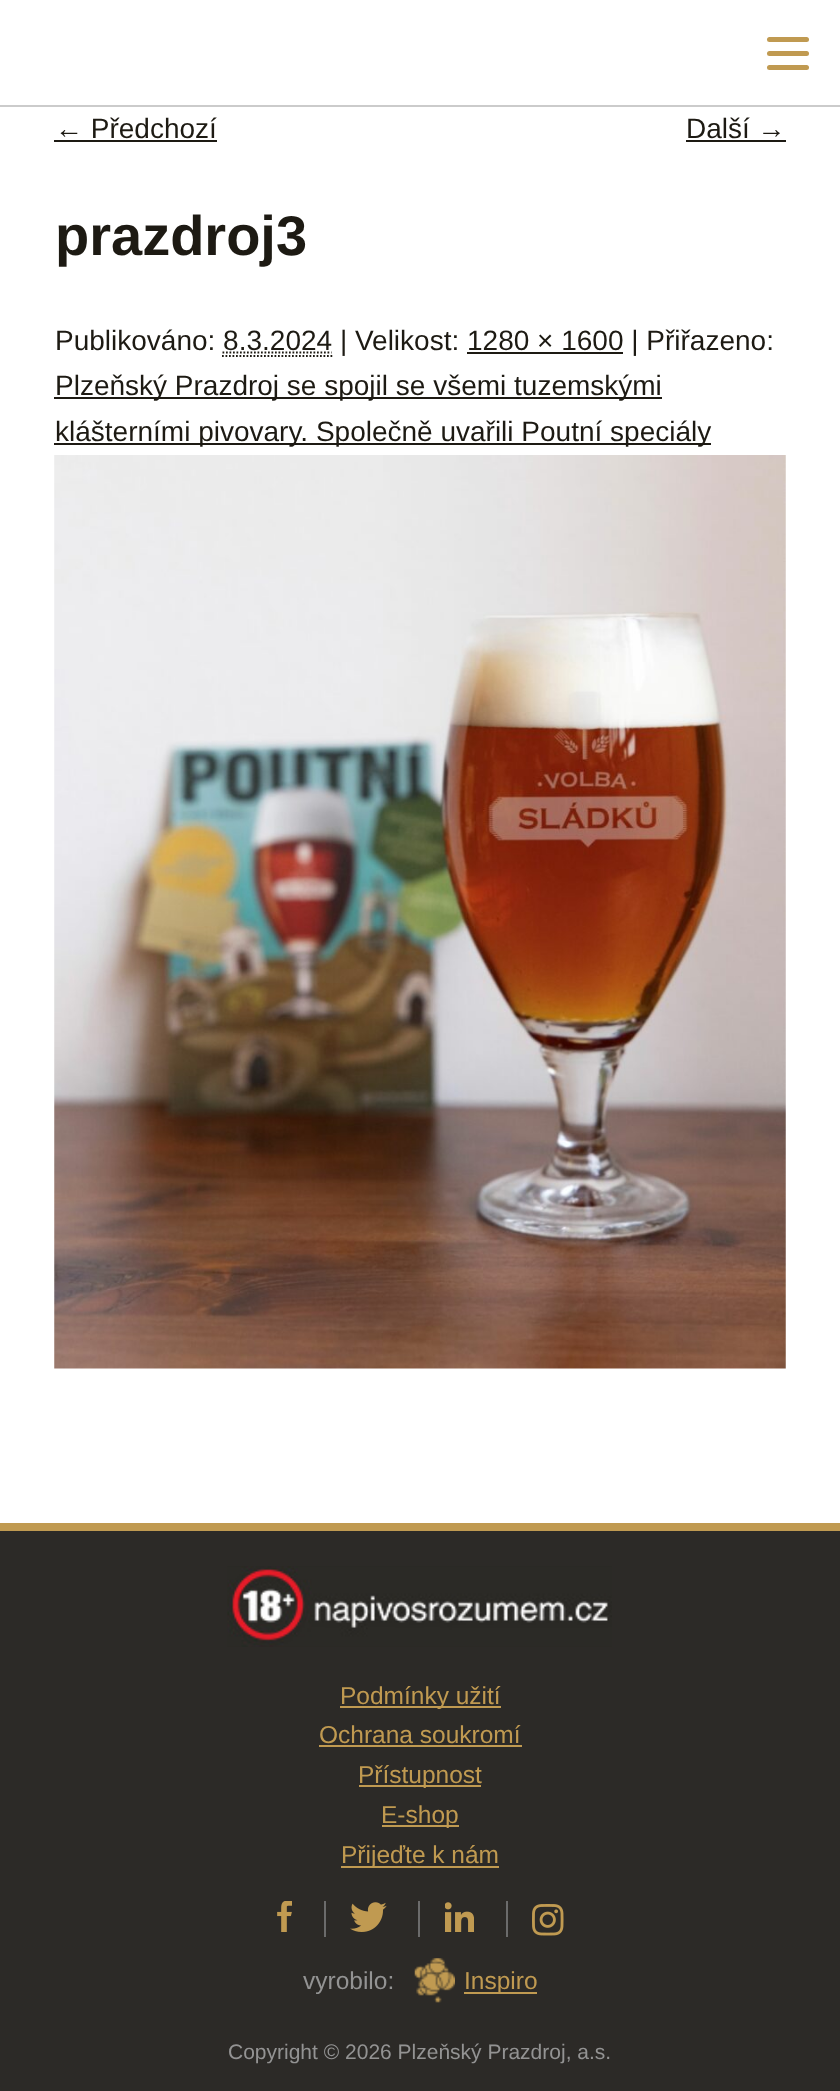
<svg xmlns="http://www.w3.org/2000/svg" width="840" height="2091">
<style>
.a{font:28px Liberation Sans;fill:#1d1a13}
.b{font:bold 56px Liberation Sans;fill:#1d1a13}
.c{font:24.5px Liberation Sans;fill:#c09a51}
.d{font:24.5px Liberation Sans;fill:#939393}
.e{font:21px Liberation Sans;fill:#939393}
</style>
<rect width="100%" height="100%" fill="#fff"/>
<path fill="#cbcbcb" d="M0 105h840v2H0z"/>
<rect fill="#c09a51" x="767" y="37" width="42" height="5" rx="2.5"/>
<rect fill="#c09a51" x="767" y="51" width="42" height="5" rx="2.5"/>
<rect fill="#c09a51" x="767" y="65" width="42" height="5" rx="2.5"/>
<path fill="#1d1a13" d="M54 140h163v2H54z"/>
<path fill="#1d1a13" d="M686 140h100v2H686z"/>
<path fill="none" stroke="#1d1a13" stroke-width="1.8" stroke-dasharray="1.75 1.75" d="M222.5 352.5h109"/>
<path fill="#1d1a13" d="M467 352h156v2H467z"/>
<path fill="none" stroke="#1d1a13" stroke-width="1.8" stroke-dasharray="1.75 1.75" d="M222 356h110.5"/>
<path fill="#1d1a13" d="M54 397h608v2H54z"/>
<path fill="#1d1a13" d="M54 443h657v2H54z"/>
<image href="1.png" x="54" y="455" width="732" height="914"/>
<path fill="#2c2a27" d="M0 1531h840v560H0z"/>
<path fill="#c09a51" d="M0 1523h840v8H0z"/>
<image href="2.png" x="227" y="1566" width="385" height="81"/>
<path fill="#c09a51" d="M340 1706h161v2H340z"/>
<path fill="#c09a51" d="M319 1745h203v2H319z"/>
<path fill="#c09a51" d="M359 1785h122v2H359z"/>
<path fill="#c09a51" d="M382 1825h77v2H382z"/>
<path fill="#c09a51" d="M341 1866h158v2H341z"/>
<image href="3.png" x="277" y="1901" width="15" height="31"/>
<path fill="#6b6b6b" d="M324 1901h2v36H324z"/>
<image href="4.png" x="350" y="1902" width="37" height="30"/>
<path fill="#6b6b6b" d="M418 1901h2v36H418z"/>
<image href="5.png" x="445" y="1902" width="29" height="30"/>
<path fill="#6b6b6b" d="M506 1901h2v36H506z"/>
<image href="6.png" x="532" y="1904" width="32" height="32"/>
<image href="7.png" x="414" y="1958" width="41" height="45"/>
<path fill="#c09a51" d="M464 1992h73v2H464z"/>
<text class="a" x="55" y="138">← Předchozí</text>
<text class="a" x="686" y="138">Další →</text>
<text class="b" x="55" y="255">prazdroj3</text>
<text class="a" x="55" y="350">Publikováno: 8.3.2024 | Velikost: 1280 × 1600 | Přiřazeno:</text>
<text class="a" x="55" y="395">Plzeňský Prazdroj se spojil se všemi tuzemskými</text>
<text class="a" x="55" y="441">klášterními pivovary. Společně uvařili Poutní speciály</text>
<text class="c" x="340" y="1704">Podmínky užití</text>
<text class="c" x="319" y="1743">Ochrana soukromí</text>
<text class="c" x="358" y="1783">Přístupnost</text>
<text class="c" x="381" y="1823">E-shop</text>
<text class="c" x="341" y="1863">Přijeďte k nám</text>
<text class="d" x="303" y="1989">vyrobilo:</text>
<text class="c" x="464" y="1989">Inspiro</text>
<text class="e" x="228" y="2059">Copyright © 2026 Plzeňský Prazdroj, a.s.</text>
</svg>
